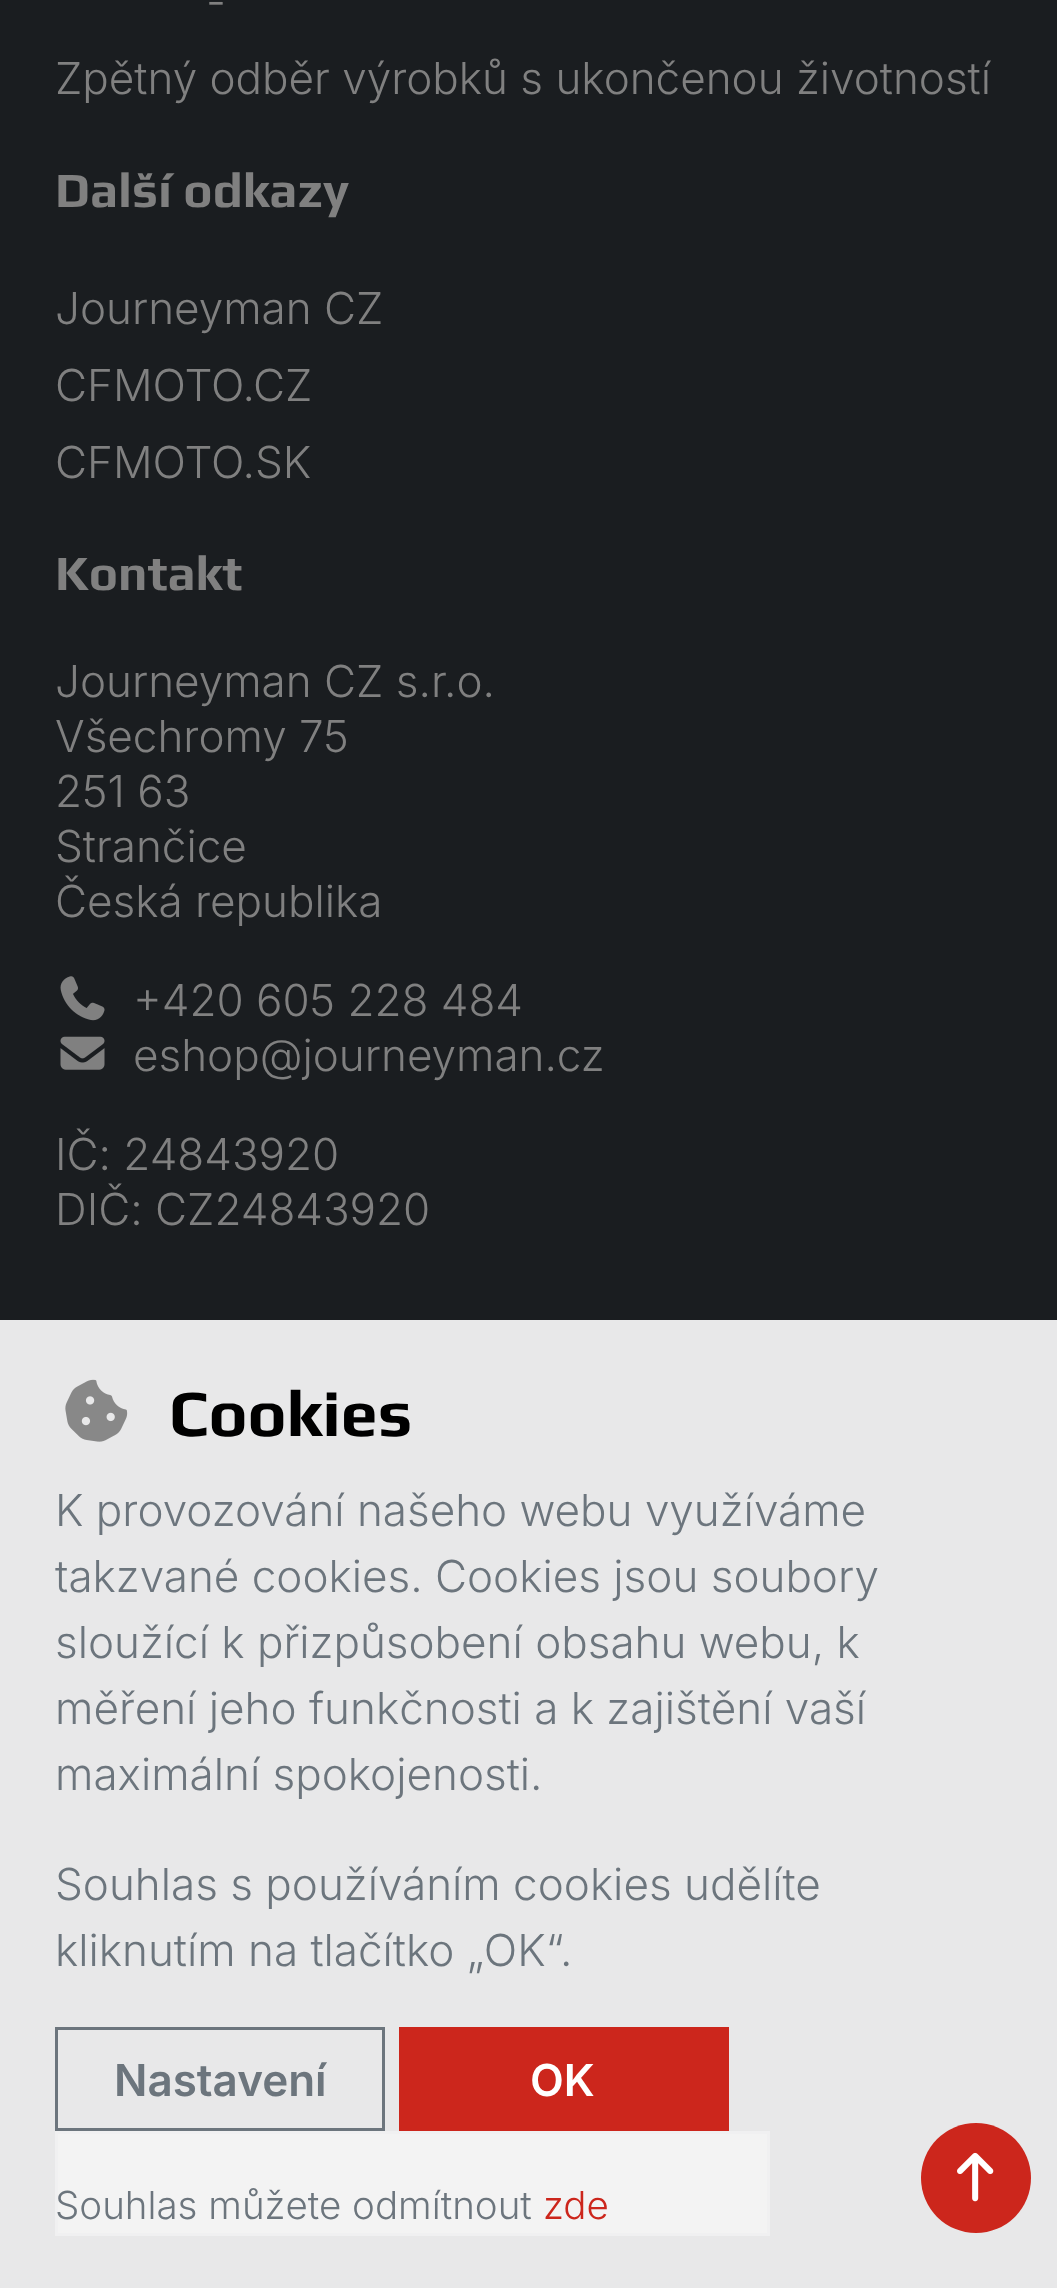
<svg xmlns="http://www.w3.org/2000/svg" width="1057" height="2288">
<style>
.a{font:300 44px Inter;fill:#808080}
.b{font:bold 49.5px Play;fill:#808080}
.c{font:bold 66px Play;fill:#000}
.d{font:300 44px Inter;fill:#6c757d}
.e{font:600 44px Inter;fill:#6c757d}
.f{font:600 44px Inter;fill:#fff}
.g{font:300 38.5px Inter;fill:#6c757d}
.h{font:300 38.5px Inter;fill:#cc261c}
</style>
<rect width="100%" height="100%" fill="#1a1d20"/>
<image href="1.png" x="60" y="976" width="45" height="45"/>
<image href="2.png" x="60" y="1036" width="45" height="34"/>
<path fill="#808080" stroke="#676a6d" stroke-width="3" d="M56.5 2132.5h712v102H56.5z"/>
<path fill="#ffffffe6" d="M0 1320h1057v968H0z"/>
<image href="3.png" x="65" y="1379" width="63" height="63"/>
<path fill="none" stroke="#6c757d" stroke-width="3" d="M56.5 2028.5h327v101H56.5z"/>
<path fill="#cc261c" d="M399 2027h330v104H399z"/>
<circle fill="#cc261c" cx="976" cy="2178" r="55"/>
<image href="4.png" x="957" y="2152" width="37" height="50"/>
<text class="a" x="206" y="17">-</text>
<text class="a" x="55" y="94">Zpětný odběr výrobků s ukončenou životností</text>
<text class="b" x="55" y="207">Další odkazy</text>
<text class="a" x="55" y="324">Journeyman CZ</text>
<text class="a" x="55" y="401">CFMOTO.CZ</text>
<text class="a" x="55" y="478">CFMOTO.SK</text>
<text class="b" x="55" y="590">Kontakt</text>
<text class="a" x="55" y="697">Journeyman CZ s.r.o.</text>
<text class="a" x="55" y="752">Všechromy 75</text>
<text class="a" x="55" y="807">251 63</text>
<text class="a" x="55" y="862">Strančice</text>
<text class="a" x="55" y="917">Česká republika</text>
<text class="a" x="133" y="1016">+420 605 228 484</text>
<text class="a" x="133" y="1071">eshop@journeyman.cz</text>
<text class="a" x="55" y="1170">IČ: 24843920</text>
<text class="a" x="55" y="1225">DIČ: CZ24843920</text>
<text class="c" x="169" y="1436">Cookies</text>
<text class="d" x="55" y="1526">K provozování našeho webu využíváme</text>
<text class="d" x="55" y="1592">takzvané cookies. Cookies jsou soubory</text>
<text class="d" x="55" y="1658">sloužící k přizpůsobení obsahu webu, k</text>
<text class="d" x="55" y="1724">měření jeho funkčnosti a k zajištění vaší</text>
<text class="d" x="55" y="1790">maximální spokojenosti.</text>
<text class="d" x="55" y="1900">Souhlas s používáním cookies udělíte</text>
<text class="d" x="55" y="1966">kliknutím na tlačítko „OK“.</text>
<text class="e" x="114" y="2096">Nastavení</text>
<text class="f" x="530" y="2096">OK</text>
<text class="g" x="55" y="2219">Souhlas můžete odmítnout</text>
<text class="h" x="543" y="2219">zde</text>
</svg>
